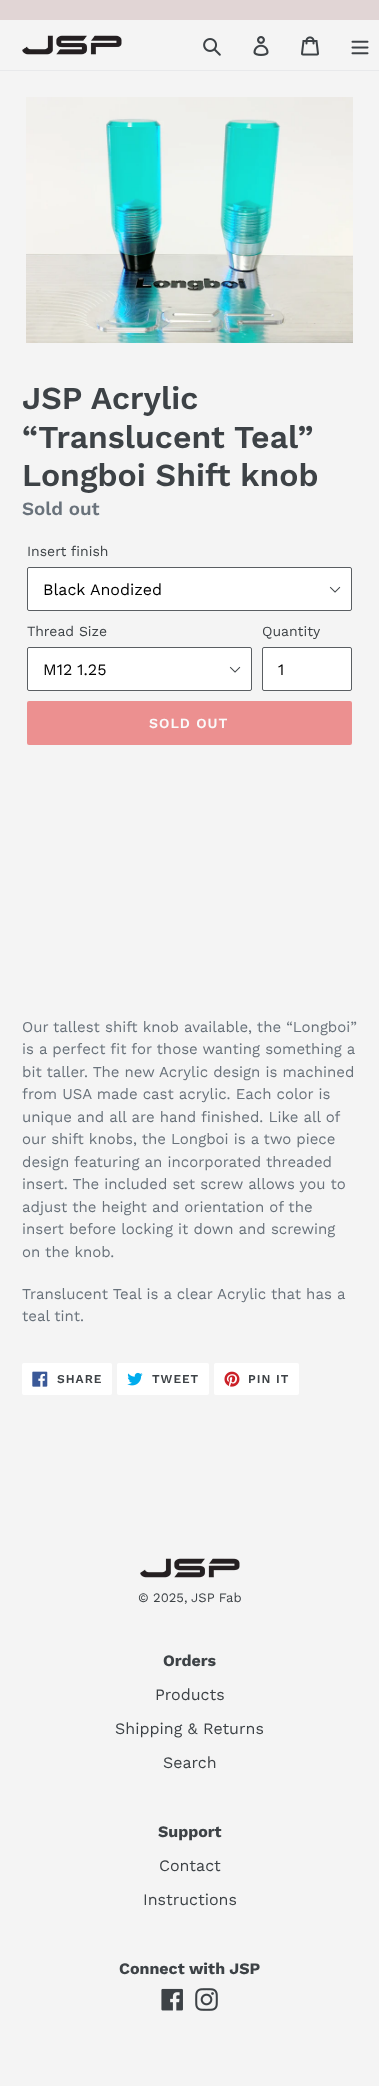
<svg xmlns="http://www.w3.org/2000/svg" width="379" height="2086">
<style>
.a{font:600 32px Work Sans;fill:#3d4246}
.b{font:600 18.75px Work Sans;fill:#69727b}
.c{font:14px Work Sans;fill:#3d4246}
.d{font:16px Work Sans;fill:#000}
.e{font:600 14px Work Sans;letter-spacing:1px;fill:#fafafa}
.f{font:15px Work Sans;fill:#69727b}
.g{font:600 12px Work Sans;letter-spacing:1px;fill:#3d4246}
.h{font:13px Work Sans;fill:#3d4246}
.i{font:bold 16px Work Sans;fill:#3d4246}
.j{font:16px Work Sans;fill:#3d4246}
</style>
<rect width="100%" height="100%" fill="#f4f4f4"/>
<path fill="#e1d5d5" d="M0 0h379v20H0z"/>
<path fill="#e8e9eb" d="M0 70h379v1H0z"/>
<image href="1.png" x="22" y="35" width="100" height="20"/>
<image href="2.png" x="203" y="38" width="18" height="18"/>
<image href="3.png" x="253" y="36" width="16" height="20"/>
<image href="4.png" x="301" y="36" width="18" height="20"/>
<image href="5.png" x="351" y="40" width="18" height="15"/>
<image href="6.png" x="26" y="97" width="327" height="246"/>
<rect fill="#fff" x="27" y="567" width="325" height="44" rx="2"/>
<image href="7.png" x="329" y="586" width="12" height="7"/>
<rect fill="none" stroke="#5a5e62" x="27.5" y="567.5" width="324" height="43" rx="1.5"/>
<rect fill="#fff" x="27" y="647" width="225" height="44" rx="2"/>
<image href="7.png" x="229" y="666" width="12" height="7"/>
<rect fill="none" stroke="#5a5e62" x="27.5" y="647.5" width="224" height="43" rx="1.5"/>
<rect fill="#fff" stroke="#5a5e62" x="262.5" y="647.5" width="89" height="43" rx="1.5"/>
<rect fill="#ec9090" x="27" y="701" width="325" height="44" rx="2"/>
<rect fill="#fff" x="22" y="1363" width="90" height="32" rx="2"/>
<image href="8.png" x="32" y="1371" width="16" height="16"/>
<rect fill="#fff" x="117" y="1363" width="92" height="32" rx="2"/>
<image href="9.png" x="127" y="1372" width="16" height="14"/>
<rect fill="#fff" x="214" y="1363" width="85" height="32" rx="2"/>
<image href="10.png" x="224" y="1371" width="16" height="16"/>
<image href="11.png" x="140" y="1558" width="100" height="20"/>
<image href="12.png" x="161" y="1988" width="22" height="23"/>
<image href="13.png" x="195" y="1988" width="23" height="23"/>
<text class="a" x="22" y="409">JSP Acrylic</text>
<text class="a" x="22" y="448">“Translucent Teal”</text>
<text class="a" x="22" y="486">Longboi Shift knob</text>
<text class="b" x="22" y="515">Sold out</text>
<text class="c" x="27" y="556">Insert finish</text>
<text class="d" x="43" y="595">Black Anodized</text>
<text class="c" x="27" y="636">Thread Size</text>
<text class="d" x="43" y="675">M12 1.25</text>
<text class="c" x="262" y="636">Quantity</text>
<text class="d" x="278" y="675">1</text>
<text class="e" x="149" y="728">SOLD OUT</text>
<text class="f" x="22" y="1032">Our tallest shift knob available, the “Longboi”</text>
<text class="f" x="22" y="1054">is a perfect fit for those wanting something a</text>
<text class="f" x="22" y="1077">bit taller. The new Acrylic design is machined</text>
<text class="f" x="22" y="1099">from USA made cast acrylic. Each color is</text>
<text class="f" x="22" y="1122">unique and all are hand finished. Like all of</text>
<text class="f" x="22" y="1144">our shift knobs, the Longboi is a two piece</text>
<text class="f" x="22" y="1167">design featuring an incorporated threaded</text>
<text class="f" x="22" y="1189">insert. The included set screw allows you to</text>
<text class="f" x="22" y="1212">adjust the height and orientation of the</text>
<text class="f" x="22" y="1234">insert before locking it down and screwing</text>
<text class="f" x="22" y="1257">on the knob.</text>
<text class="f" x="22" y="1299">Translucent Teal is a clear Acrylic that has a</text>
<text class="f" x="22" y="1321">teal tint.</text>
<text class="g" x="57" y="1383">SHARE</text>
<text class="g" x="152" y="1383">TWEET</text>
<text class="g" x="248" y="1383">PIN IT</text>
<text class="h" x="138" y="1602">© 2025,</text>
<text class="h" x="191" y="1602">JSP Fab</text>
<text class="i" x="163" y="1666">Orders</text>
<text class="j" x="155" y="1700">Products</text>
<text class="j" x="115" y="1734">Shipping &amp; Returns</text>
<text class="j" x="163" y="1768">Search</text>
<text class="i" x="158" y="1837">Support</text>
<text class="j" x="159" y="1871">Contact</text>
<text class="j" x="143" y="1905">Instructions</text>
<text class="i" x="119" y="1974">Connect with JSP</text>
</svg>
